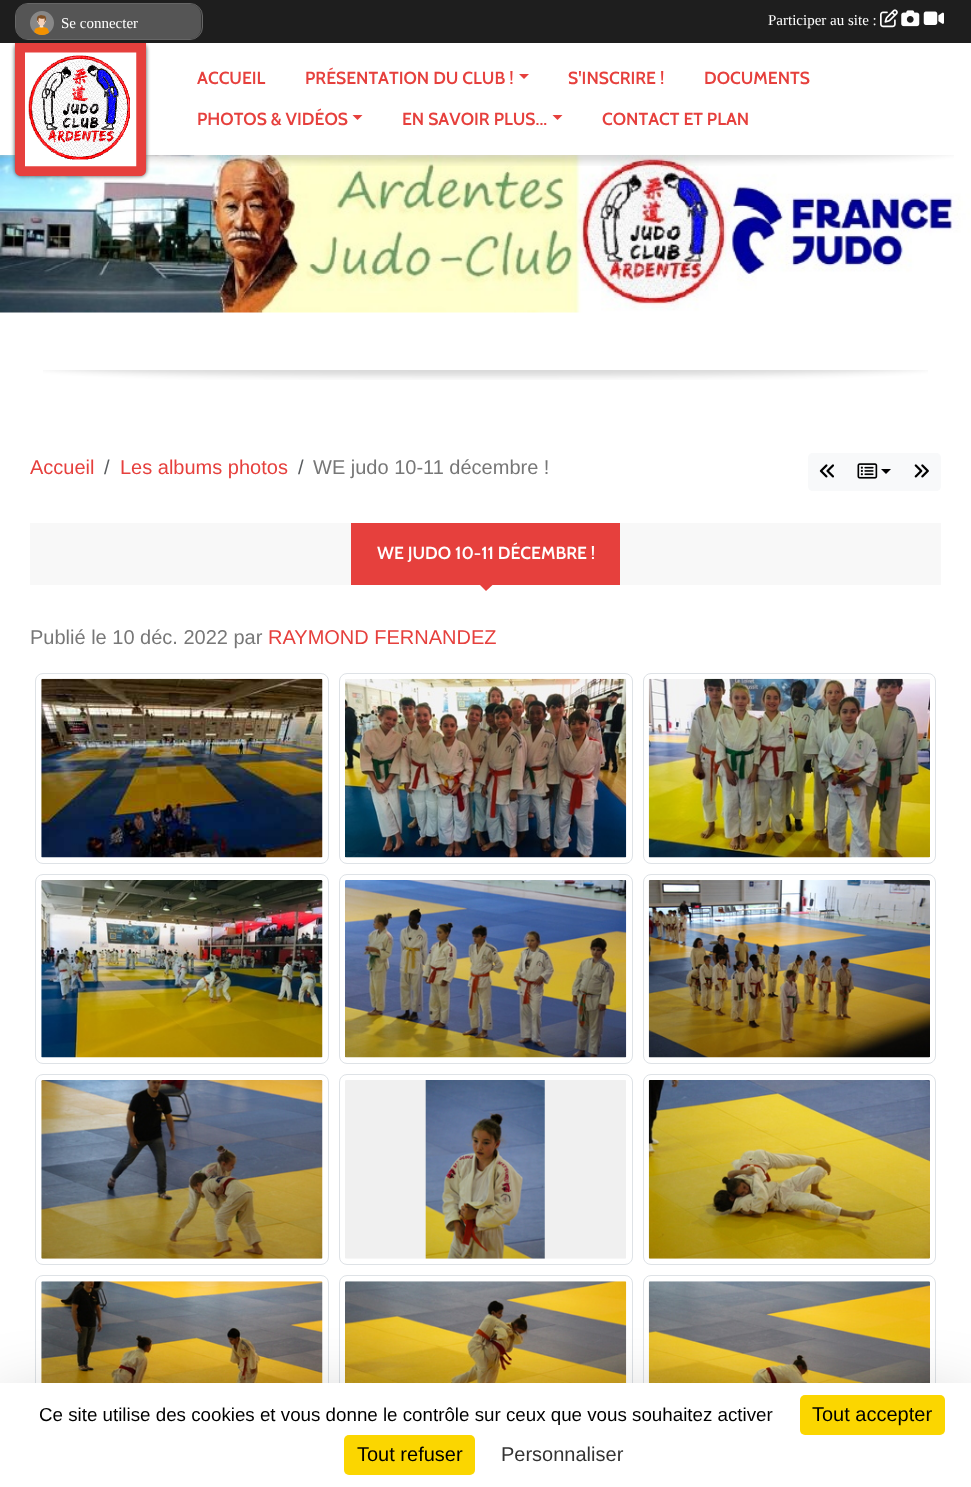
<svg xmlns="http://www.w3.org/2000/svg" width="971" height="1487">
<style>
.a{font:15px Liberation Serif;fill:#fff}
.b{font:600 17.5px Cabin;fill:#e6403d}
.c{font:20px Liberation Sans;fill:#e6403d}
.d{font:20px Liberation Sans;fill:#595c5f}
.e{font:20px Liberation Sans;fill:#777}
.f{font:600 17.5px Cabin;fill:#fff}
.g{font:18.75px Liberation Sans;fill:#000}
.h{font:20px Liberation Sans;fill:#000}
.i{font:20px Liberation Sans;fill:#333}
</style>
<rect width="100%" height="100%" fill="#fff"/>
<image href="7.png" x="0" y="155" width="970" height="158"/>
<image href="6.png" x="146" y="155" width="808" height="11"/>
<rect fill="#444" filter="blur(2px)" x="15" y="43" width="131" height="133" rx="6"/>
<path fill="#1e1e1e" d="M0 0h971v43H0z"/>
<rect fill="#333" stroke="#666" x="15.5" y="3.5" width="187" height="36" rx="12.5"/>
<rect fill="#555" x="16" y="4" width="185" height="35" rx="11"/>
<image href="1.png" x="30" y="11" width="24" height="24"/>
<image href="2.png" x="880" y="9" width="18" height="19"/>
<image href="3.png" x="901" y="10" width="19" height="17"/>
<image href="4.png" x="923" y="11" width="21" height="14"/>
<path fill="#e6403d" d="M15 43h131v127c0 3.5-2.5 6-6 6h-119c-3.5 0-6-2.5-6-6z"/>
<image href="5.png" x="25" y="52" width="112" height="115"/>
<path fill="#e6403d" d="M519 74h10l-5 5z"/>
<path fill="#e6403d" d="M352.5 115h10l-5 5z"/>
<path fill="#e6403d" d="M552.5 115h10l-5 5z"/>
<image href="8.png" x="43" y="370" width="885" height="10"/>
<path fill="#f8f9fa" d="M813 453h35v38h-35c-3 0-5-2-5-5v-28c0-3 2-5 5-5z"/>
<image href="9.png" x="819" y="464" width="15" height="14"/>
<path fill="#f8f9fa" d="M848 453h53v38H848z"/>
<image href="10.png" x="857" y="463" width="21" height="16"/>
<path fill="#000" d="M881 469h10l-5 5z"/>
<path fill="#f8f9fa" d="M901 453h35c3 0 5 2 5 5v28c0 3-2 5-5 5h-35z"/>
<image href="11.png" x="914" y="464" width="15" height="14"/>
<path fill="#f8f8f8" d="M30 523h911v62H30z"/>
<path fill="#e6403d" d="M351 523h269v62H351z"/>
<path fill="#e6403d" d="M480 585h12.5l-6.5 6z"/>
<rect fill="none" stroke="#dee2e6" x="35.5" y="673.5" width="293" height="190" rx="7.5"/>
<image href="12.png" x="41" y="678" width="282" height="180"/>
<rect fill="none" stroke="#dee2e6" x="339.5" y="673.5" width="293" height="190" rx="7.5"/>
<image href="13.png" x="345" y="678" width="282" height="180"/>
<rect fill="none" stroke="#dee2e6" x="643.5" y="673.5" width="292" height="190" rx="7.5"/>
<image href="14.png" x="648" y="678" width="282" height="180"/>
<rect fill="none" stroke="#dee2e6" x="35.5" y="874.5" width="293" height="189" rx="7.5"/>
<image href="15.png" x="41" y="880" width="282" height="178"/>
<rect fill="none" stroke="#dee2e6" x="339.5" y="874.5" width="293" height="189" rx="7.5"/>
<image href="16.png" x="345" y="880" width="282" height="178"/>
<rect fill="none" stroke="#dee2e6" x="643.5" y="874.5" width="292" height="189" rx="7.5"/>
<image href="17.png" x="648" y="880" width="282" height="178"/>
<rect fill="none" stroke="#dee2e6" x="35.5" y="1074.5" width="293" height="190" rx="7.5"/>
<image href="18.png" x="41" y="1080" width="282" height="179"/>
<rect fill="none" stroke="#dee2e6" x="339.5" y="1074.5" width="293" height="190" rx="7.5"/>
<image href="19.png" x="345" y="1080" width="281" height="179"/>
<rect fill="none" stroke="#dee2e6" x="643.5" y="1074.5" width="292" height="190" rx="7.5"/>
<image href="20.png" x="648" y="1080" width="282" height="179"/>
<rect fill="none" stroke="#dee2e6" x="35.5" y="1275.5" width="293" height="189" rx="7.5"/>
<image href="21.png" x="41" y="1281" width="282" height="102"/>
<rect fill="none" stroke="#dee2e6" x="339.5" y="1275.5" width="293" height="189" rx="7.5"/>
<image href="22.png" x="345" y="1281" width="282" height="102"/>
<rect fill="none" stroke="#dee2e6" x="643.5" y="1275.5" width="292" height="189" rx="7.5"/>
<image href="23.png" x="648" y="1281" width="282" height="102"/>
<path fill="#00000040" filter="blur(37.5px)" d="M0 1408h971v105H0z"/>
<path fill="#fff" d="M0 1383h971v104H0z"/>
<rect fill="#fbd600" x="800" y="1395" width="145" height="40" rx="5"/>
<rect fill="#fbd600" x="344" y="1435" width="131" height="40" rx="5"/>
<text class="a" x="61" y="28">Se connecter</text>
<text class="a" x="768" y="25">Participer au site :</text>
<text class="b" x="197" y="84">ACCUEIL</text>
<text class="b" x="305" y="84">PRÉSENTATION DU CLUB !</text>
<text class="b" x="568" y="84">S'INSCRIRE !</text>
<text class="b" x="704" y="84">DOCUMENTS</text>
<text class="b" x="197" y="125">PHOTOS &amp; VIDÉOS</text>
<text class="b" x="402" y="125">EN SAVOIR PLUS...</text>
<text class="b" x="602" y="125">CONTACT ET PLAN</text>
<text class="c" x="30" y="474">Accueil</text>
<text class="d" x="104" y="474">/</text>
<text class="c" x="120" y="474">Les albums photos</text>
<text class="d" x="298" y="474">/</text>
<text class="e" x="313" y="474">WE judo 10-11 décembre !</text>
<text class="f" x="377" y="559">WE JUDO 10-11 DÉCEMBRE !</text>
<text class="e" x="30" y="644">Publié le 10 déc. 2022 par</text>
<text class="c" x="268" y="644">RAYMOND FERNANDEZ</text>
<text class="g" x="39" y="1421">Ce site utilise des cookies et vous donne le contrôle sur ceux que vous souhaitez activer</text>
<text class="h" x="812" y="1421">Tout accepter</text>
<text class="h" x="357" y="1461">Tout refuser</text>
<text class="i" x="501" y="1461">Personnaliser</text>
</svg>
